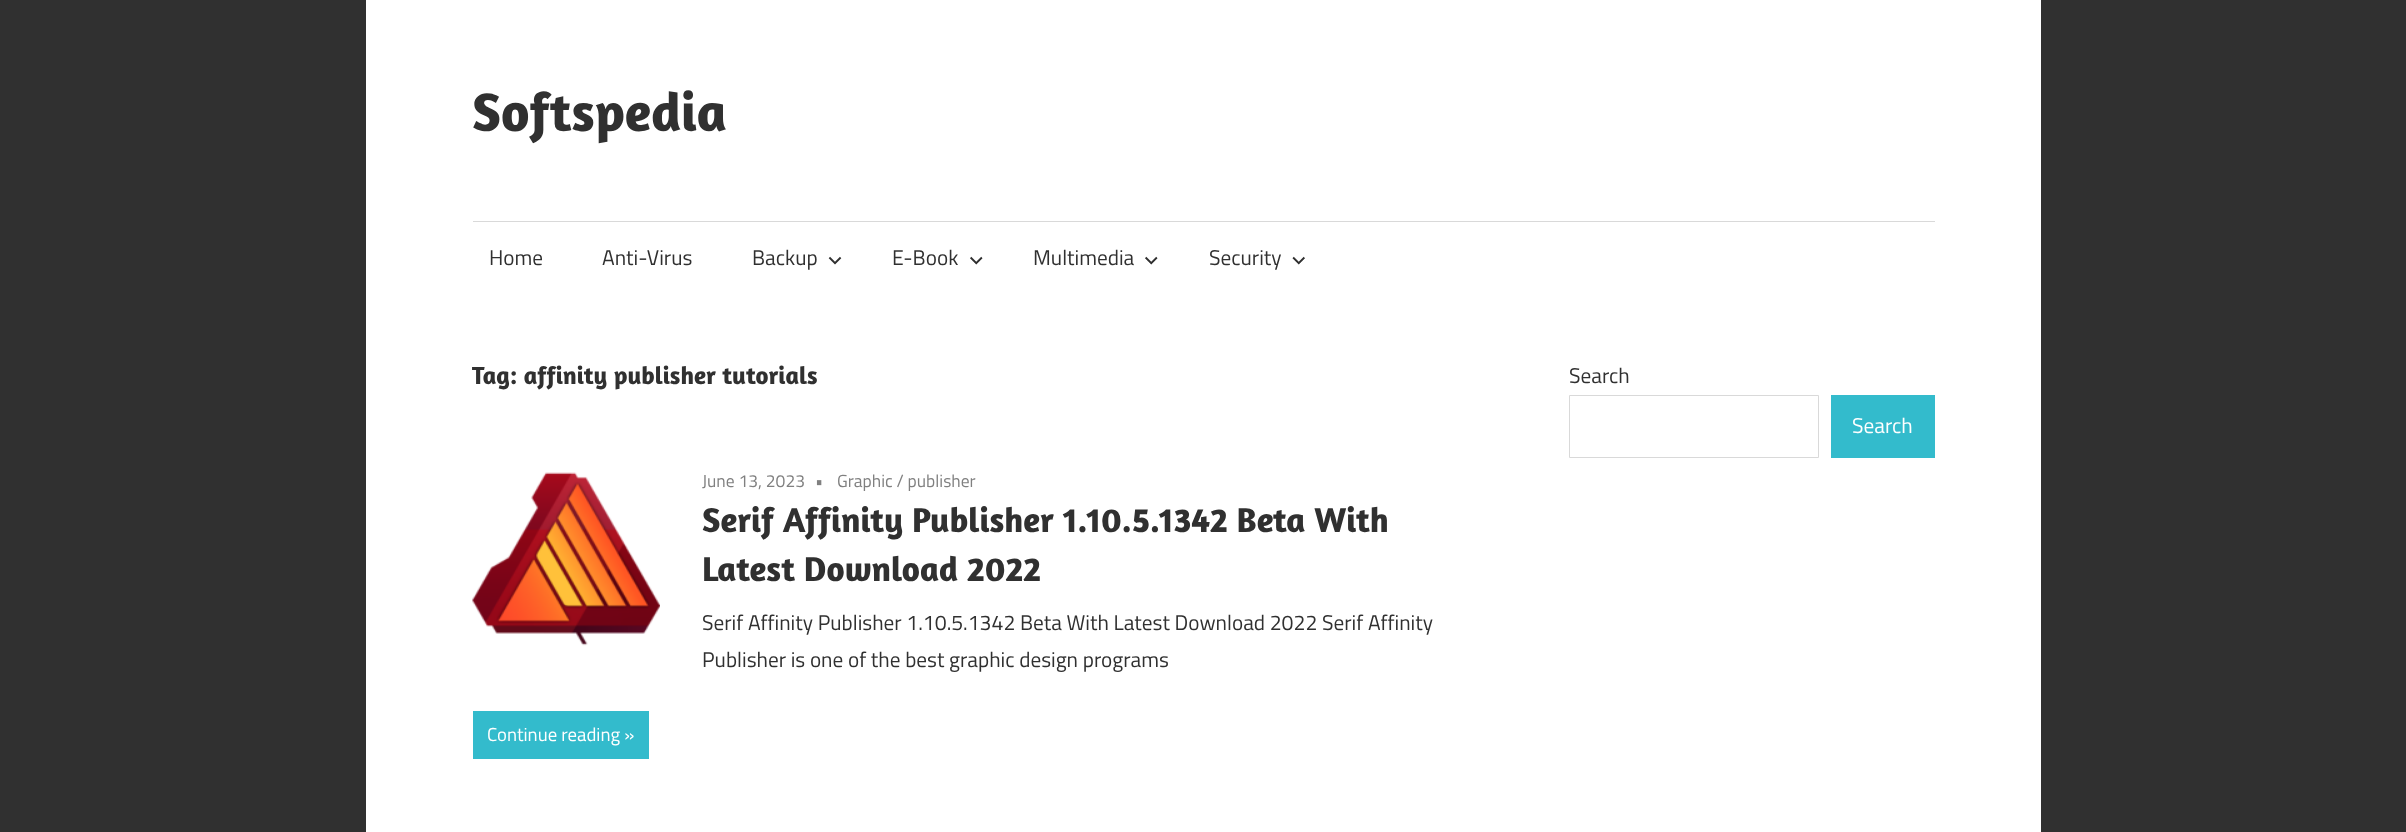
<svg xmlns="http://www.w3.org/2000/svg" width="2406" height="832">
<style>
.a{font:bold 55px Amaranth;fill:#303030}
.b{font:21.25px Titillium Web;fill:#303030}
.c{font:bold 25px Amaranth;fill:#303030}
.d{font:17.5px Titillium Web;fill:#808080}
.e{font:bold 35px Amaranth;fill:#303030}
.f{font:18.75px Titillium Web;fill:#fff}
.g{font:21.25px Titillium Web;fill:#fff}
</style>
<rect width="100%" height="100%" fill="#303030"/>
<path fill="#fff" d="M366 0h1675v832H366z"/>
<path fill="#d9d9d9" d="M473 221h1462v1H473z"/>
<image href="1.png" x="828" y="256" width="14" height="9"/>
<image href="2.png" x="970" y="256" width="13" height="9"/>
<image href="2.png" x="1145" y="256" width="13" height="9"/>
<image href="3.png" x="1292" y="256" width="13" height="9"/>
<image href="4.png" x="472" y="472" width="188" height="174"/>
<path fill="#3bc" d="M473 711h176v48H473z"/>
<path fill="none" stroke="#d9d9d9" d="M1569.5 395.5h249v62H1569.5z"/>
<path fill="#3bc" d="M1831 395h104v63H1831z"/>
<text class="a" x="472" y="131">Softspedia</text>
<text class="b" x="489" y="265">Home</text>
<text class="b" x="602" y="265">Anti-Virus</text>
<text class="b" x="752" y="265">Backup</text>
<text class="b" x="892" y="265">E-Book</text>
<text class="b" x="1033" y="265">Multimedia</text>
<text class="b" x="1209" y="265">Security</text>
<text class="c" x="472" y="384">Tag: affinity publisher tutorials</text>
<text class="d" x="702" y="487">June 13, 2023</text>
<text class="d" x="815" y="487">•</text>
<text class="d" x="837" y="487">Graphic / publisher</text>
<text class="e" x="702" y="532">Serif Affinity Publisher 1.10.5.1342 Beta With</text>
<text class="e" x="702" y="581">Latest Download 2022</text>
<text class="b" x="702" y="630">Serif Affinity Publisher 1.10.5.1342 Beta With Latest Download 2022 Serif Affinity</text>
<text class="b" x="702" y="667">Publisher is one of the best graphic design programs</text>
<text class="f" x="487" y="741">Continue reading »</text>
<text class="b" x="1569" y="383">Search</text>
<text class="g" x="1852" y="433">Search</text>
</svg>
